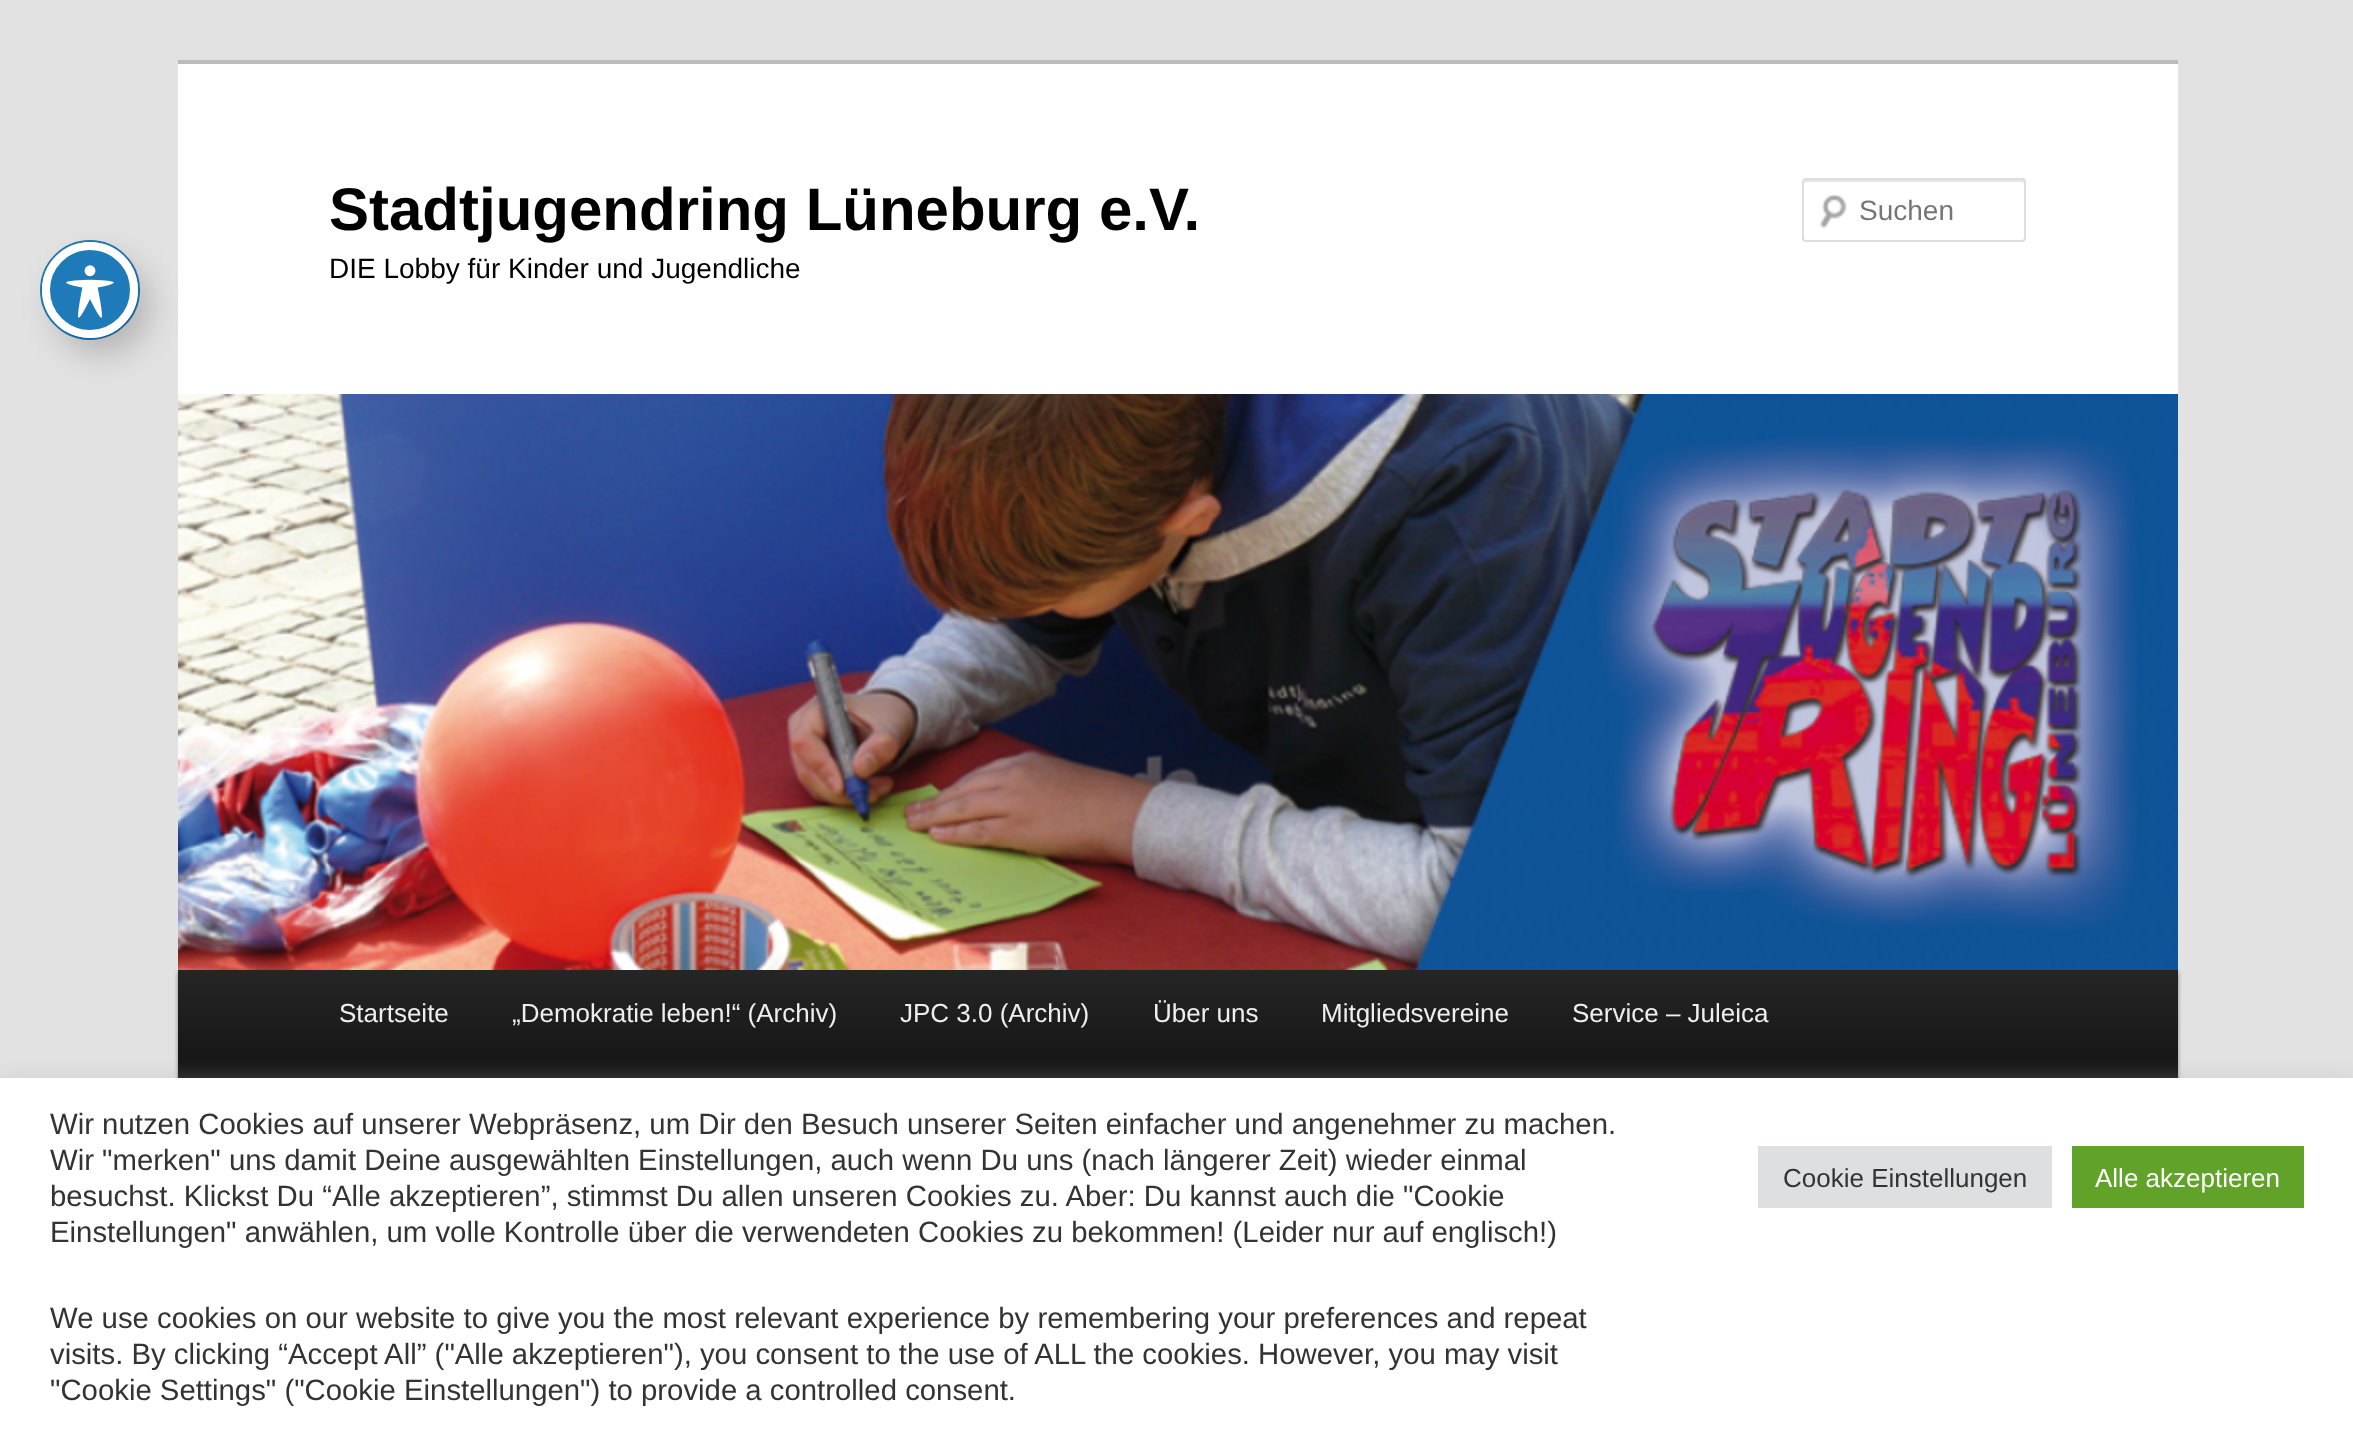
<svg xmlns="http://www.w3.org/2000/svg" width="2353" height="1435">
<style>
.a{font:bold 60px Liberation Sans;fill:#000}
.b{font:28px Liberation Sans;fill:#000}
.c{font:28px Liberation Sans;fill:#757575}
.d{font:26px Liberation Sans;fill:#eee}
.e{font:29.33px Liberation Sans;fill:#333}
.f{font:26px Liberation Sans;fill:#333}
.g{font:26px Liberation Sans;fill:#fff}
</style>
<defs>
<linearGradient id="g1" gradientUnits="userSpaceOnUse" x1="1178" y1="970" x2="1178" y2="1142"><stop offset="0" stop-color="#252525"/><stop offset="1" stop-color="#0a0a0a"/></linearGradient>
</defs>
<rect width="100%" height="100%" fill="#e2e2e2"/>
<circle fill="none" stroke="#1e7ab9" stroke-width="2" cx="90" cy="290" r="49"/>
<path fill="#fff" d="M178 64h2000v330H178z"/>
<rect fill="#00000033" filter="blur(16px)" x="54" y="258" width="96" height="96" rx="48"/>
<circle fill="#1e7ab9" stroke="#fff" stroke-width="8" cx="90" cy="290" r="44"/>
<image href="1.png" x="66" y="265" width="48" height="53"/>
<path fill="#bbb" d="M178 60h2000v4H178z"/>
<image href="2.png" x="1819" y="194" width="28" height="35"/>
<path fill="#e6e6e6" d="M1806 182h216c1 0 2 1 2 2v-2c0-1-1-2-2-2h-216c-1 0-2 1-2 2v2c0-1 1-2 2-2z"/>
<rect fill="none" stroke="#ddd" stroke-width="2" x="1803" y="179" width="222" height="62" rx="3"/>
<path fill="#00000066" filter="blur(2px)" d="M178 972h2000v172H178z"/>
<image href="3.png" x="178" y="394" width="2000" height="576"/>
<path fill="url(#g1)" d="M178 970h2000v108H178z"/>
<path fill="#acabab4d" filter="blur(10px)" d="M0 1076h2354v358H0z"/>
<path fill="#fff" d="M0 1078h2353v357H0z"/>
<path fill="#dedfe0" d="M1758 1146h294v62H1758z"/>
<path fill="#61a229" d="M2072 1146h232v62H2072z"/>
<text class="a" x="329" y="230">Stadtjugendring Lüneburg e.V.</text>
<text class="b" x="329" y="278">DIE Lobby für Kinder und Jugendliche</text>
<text class="c" x="1859" y="220">Suchen</text>
<text class="d" x="339" y="1022">Startseite</text>
<text class="d" x="512" y="1022">„Demokratie leben!“ (Archiv)</text>
<text class="d" x="900" y="1022">JPC 3.0 (Archiv)</text>
<text class="d" x="1153" y="1022">Über uns</text>
<text class="d" x="1321" y="1022">Mitgliedsvereine</text>
<text class="d" x="1572" y="1022">Service – Juleica</text>
<text class="e" x="50" y="1134">Wir nutzen Cookies auf unserer Webpräsenz, um Dir den Besuch unserer Seiten einfacher und angenehmer zu machen.</text>
<text class="e" x="50" y="1170">Wir "merken" uns damit Deine ausgewählten Einstellungen, auch wenn Du uns (nach längerer Zeit) wieder einmal</text>
<text class="e" x="50" y="1206">besuchst. Klickst Du “Alle akzeptieren”, stimmst Du allen unseren Cookies zu. Aber: Du kannst auch die "Cookie</text>
<text class="e" x="50" y="1242">Einstellungen" anwählen, um volle Kontrolle über die verwendeten Cookies zu bekommen! (Leider nur auf englisch!)</text>
<text class="f" x="1783" y="1187">Cookie Einstellungen</text>
<text class="g" x="2095" y="1187">Alle akzeptieren</text>
<text class="e" x="50" y="1328">We use cookies on our website to give you the most relevant experience by remembering your preferences and repeat</text>
<text class="e" x="50" y="1364">visits. By clicking “Accept All” ("Alle akzeptieren"), you consent to the use of ALL the cookies. However, you may visit</text>
<text class="e" x="50" y="1400">"Cookie Settings" ("Cookie Einstellungen") to provide a controlled consent.</text>
</svg>
